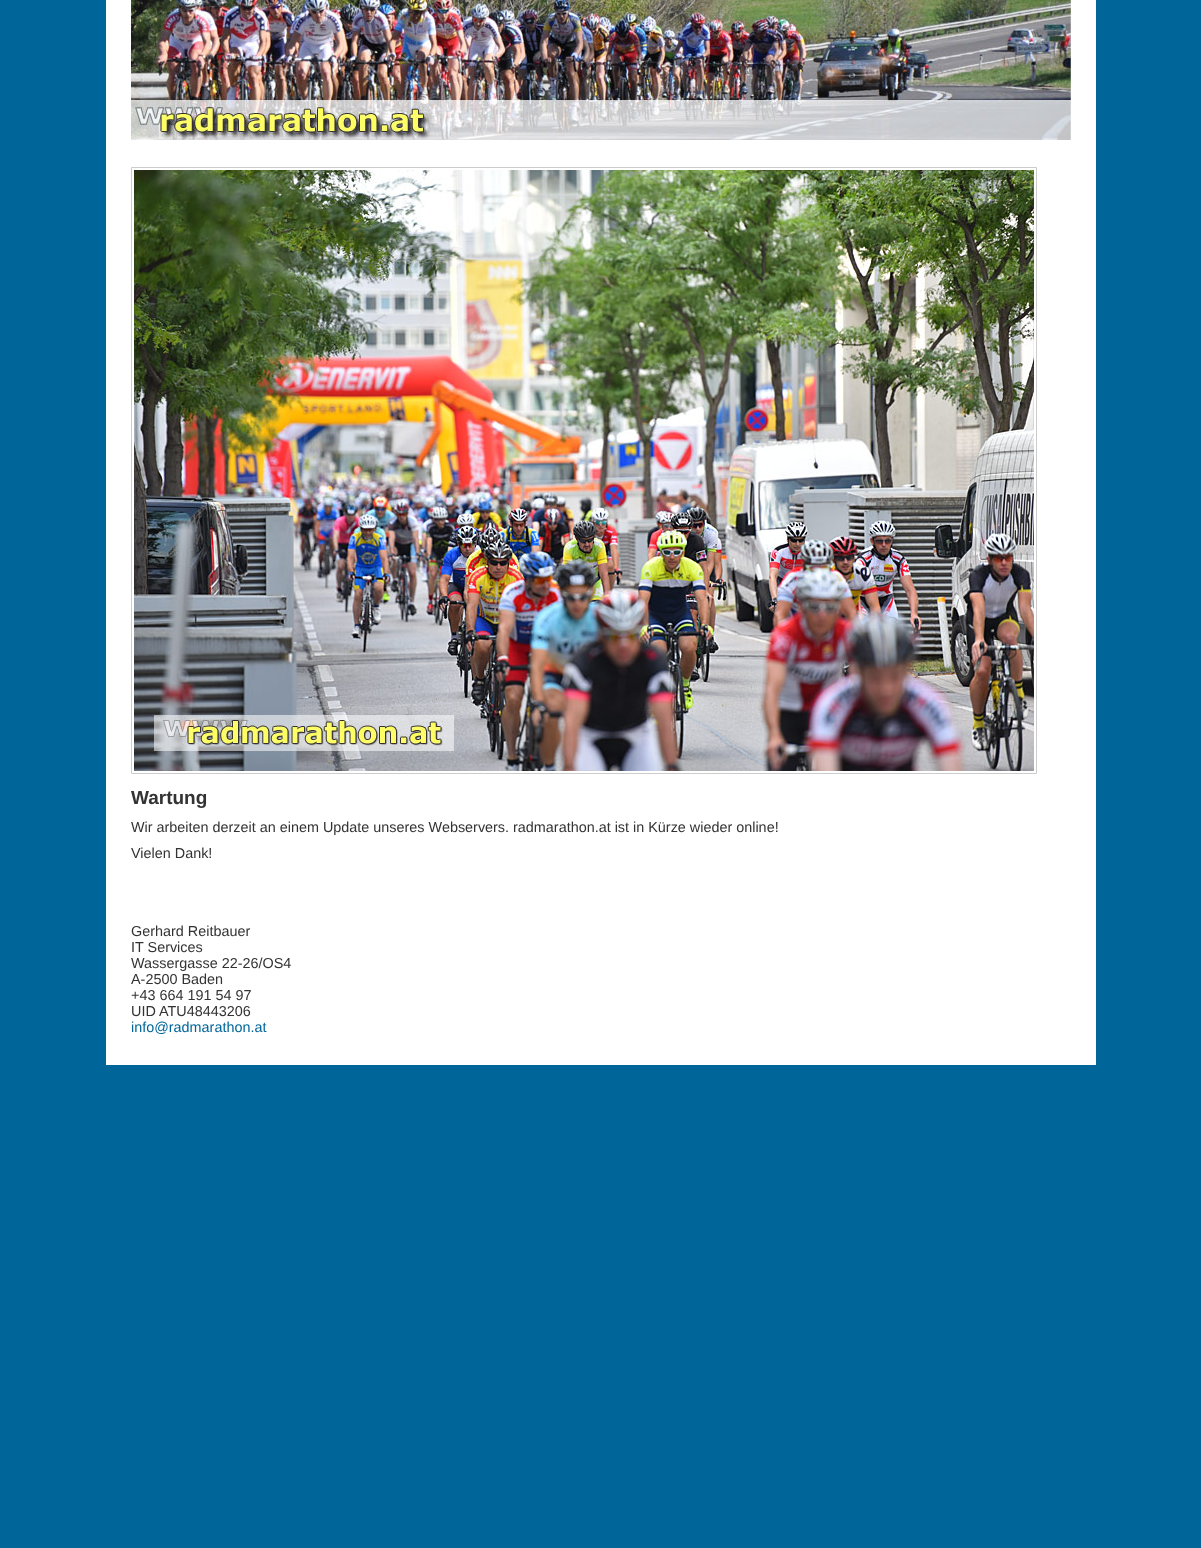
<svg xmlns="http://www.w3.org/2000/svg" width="1201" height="1548">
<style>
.a{font:bold 19px Liberation Sans;fill:#333}
.b{font:14.4px Liberation Sans;fill:#333}
.c{font:14.4px Liberation Sans;fill:#069}
</style>
<rect width="100%" height="100%" fill="#069"/>
<path fill="#fff" d="M106 0h990v1065H106z"/>
<image href="1.png" x="431" y="0" width="640" height="140"/>
<image href="2.png" x="131" y="0" width="300" height="140"/>
<path fill="none" stroke="#ccc" d="M131.5 167.5h905v606H131.5z"/>
<image href="3.png" x="134" y="170" width="900" height="601"/>
<text class="a" x="131" y="804">Wartung</text>
<text class="b" x="131" y="832">Wir arbeiten derzeit an einem Update unseres Webservers. radmarathon.at ist in Kürze wieder online!</text>
<text class="b" x="131" y="858">Vielen Dank!</text>
<text class="b" x="131" y="936">Gerhard Reitbauer</text>
<text class="b" x="131" y="952">IT Services</text>
<text class="b" x="131" y="968">Wassergasse 22-26/OS4</text>
<text class="b" x="131" y="984">A-2500 Baden</text>
<text class="b" x="131" y="1000">+43 664 191 54 97</text>
<text class="b" x="131" y="1016">UID ATU48443206</text>
<text class="c" x="131" y="1032">info@radmarathon.at</text>
</svg>
